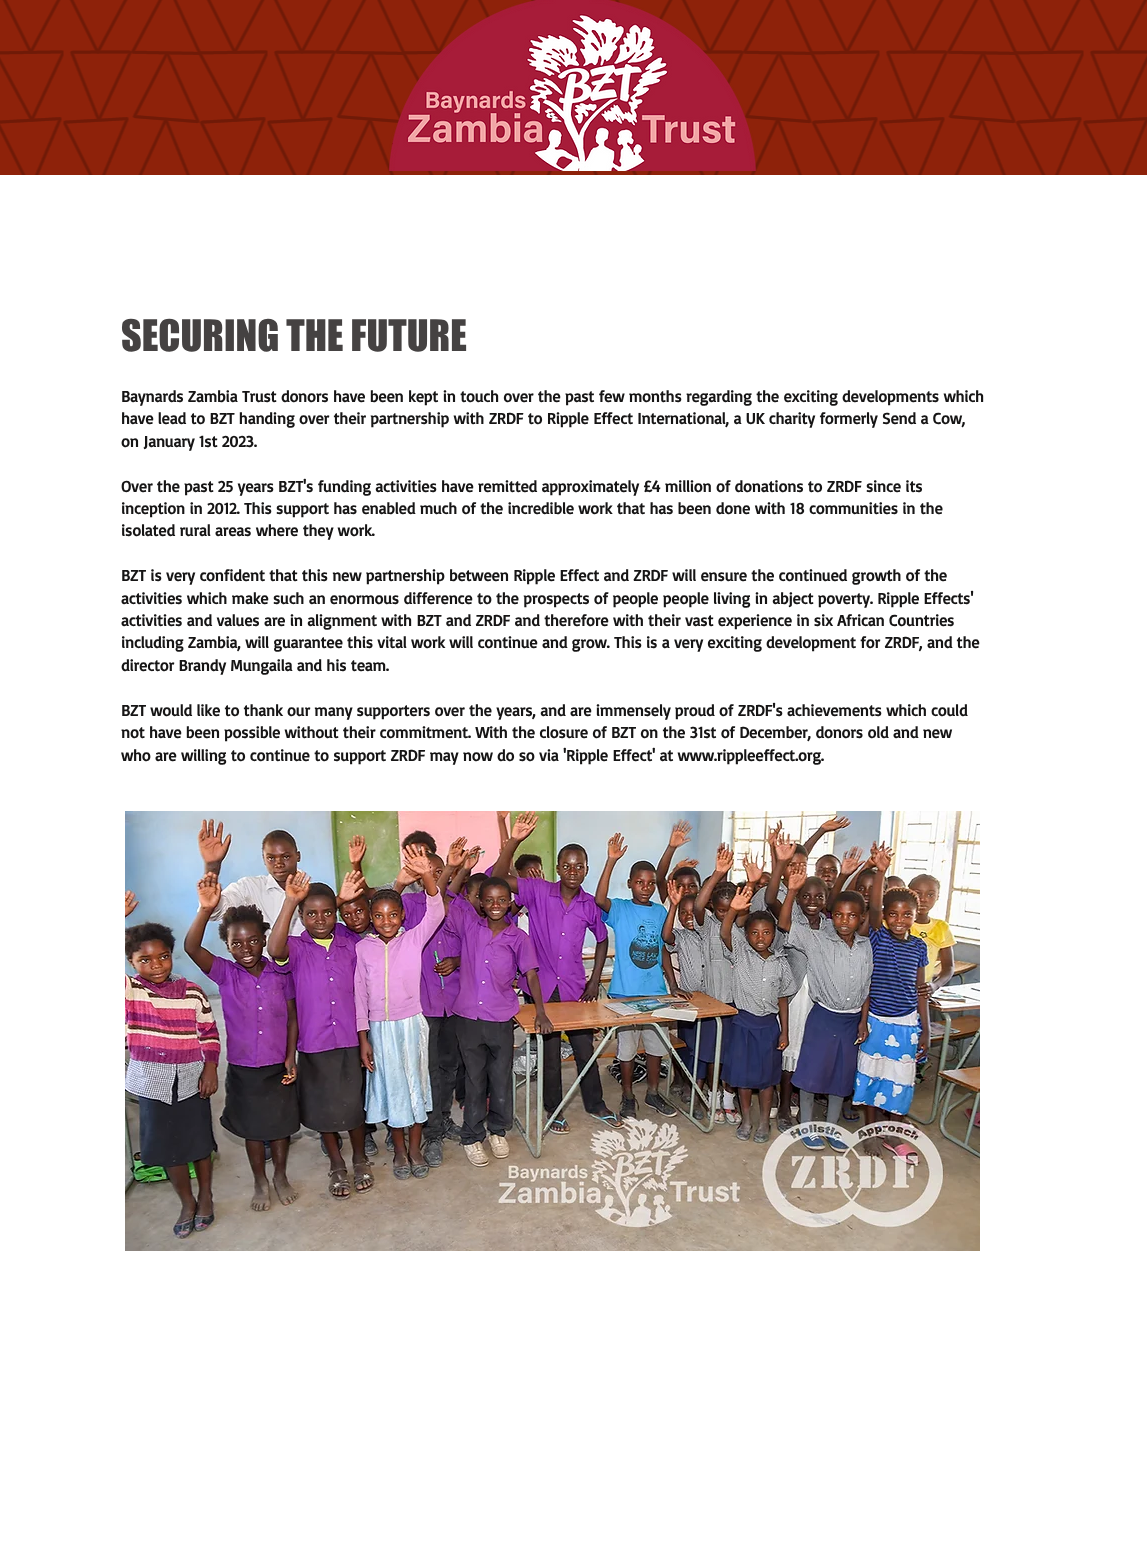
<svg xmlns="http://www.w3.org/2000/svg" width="1147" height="1542">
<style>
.a{font:40px 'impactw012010';fill:#454242}
.b{font:bold 16px Basic;fill:#161515}
</style>
<rect width="100%" height="100%" fill="#fff"/>
<path fill="#8e220a" d="M0 0h1147v175H0z"/>
<image href="1.png" x="0" y="0" width="1147" height="175"/>
<image href="2.png" x="388" y="0" width="369" height="171"/>
<image href="3.png" x="125" y="811" width="855" height="440"/>
<text class="a" x="121" y="351">SECURING THE FUTURE</text>
<text class="b" x="121" y="402">Baynards Zambia Trust donors have been kept in touch over the past few months regarding the exciting developments which</text>
<text class="b" x="121" y="424">have lead to BZT handing over their partnership with ZRDF to Ripple Effect International, a UK charity formerly Send a Cow,</text>
<text class="b" x="121" y="447">on January 1st 2023.</text>
<text class="b" x="121" y="492">Over the past 25 years BZT's funding activities have remitted approximately £4 million of donations to ZRDF since its</text>
<text class="b" x="121" y="514">inception in 2012. This support has enabled much of the incredible work that has been done with 18 communities in the</text>
<text class="b" x="121" y="536">isolated rural areas where they work.</text>
<text class="b" x="121" y="581">BZT is very confident that this new partnership between Ripple Effect and ZRDF will ensure the continued growth of the</text>
<text class="b" x="121" y="604">activities which make such an enormous difference to the prospects of people people living in abject poverty. Ripple Effects'</text>
<text class="b" x="121" y="626">activities and values are in alignment with BZT and ZRDF and therefore with their vast experience in six African Countries</text>
<text class="b" x="121" y="648">including Zambia, will guarantee this vital work will continue and grow. This is a very exciting development for ZRDF, and the</text>
<text class="b" x="121" y="671">director Brandy Mungaila and his team.</text>
<text class="b" x="121" y="716">BZT would like to thank our many supporters over the years, and are immensely proud of ZRDF's achievements which could</text>
<text class="b" x="121" y="738">not have been possible without their commitment. With the closure of BZT on the 31st of December, donors old and new</text>
<text class="b" x="121" y="761">who are willing to continue to support ZRDF may now do so via 'Ripple Effect' at www.rippleeffect.org.</text>
</svg>
